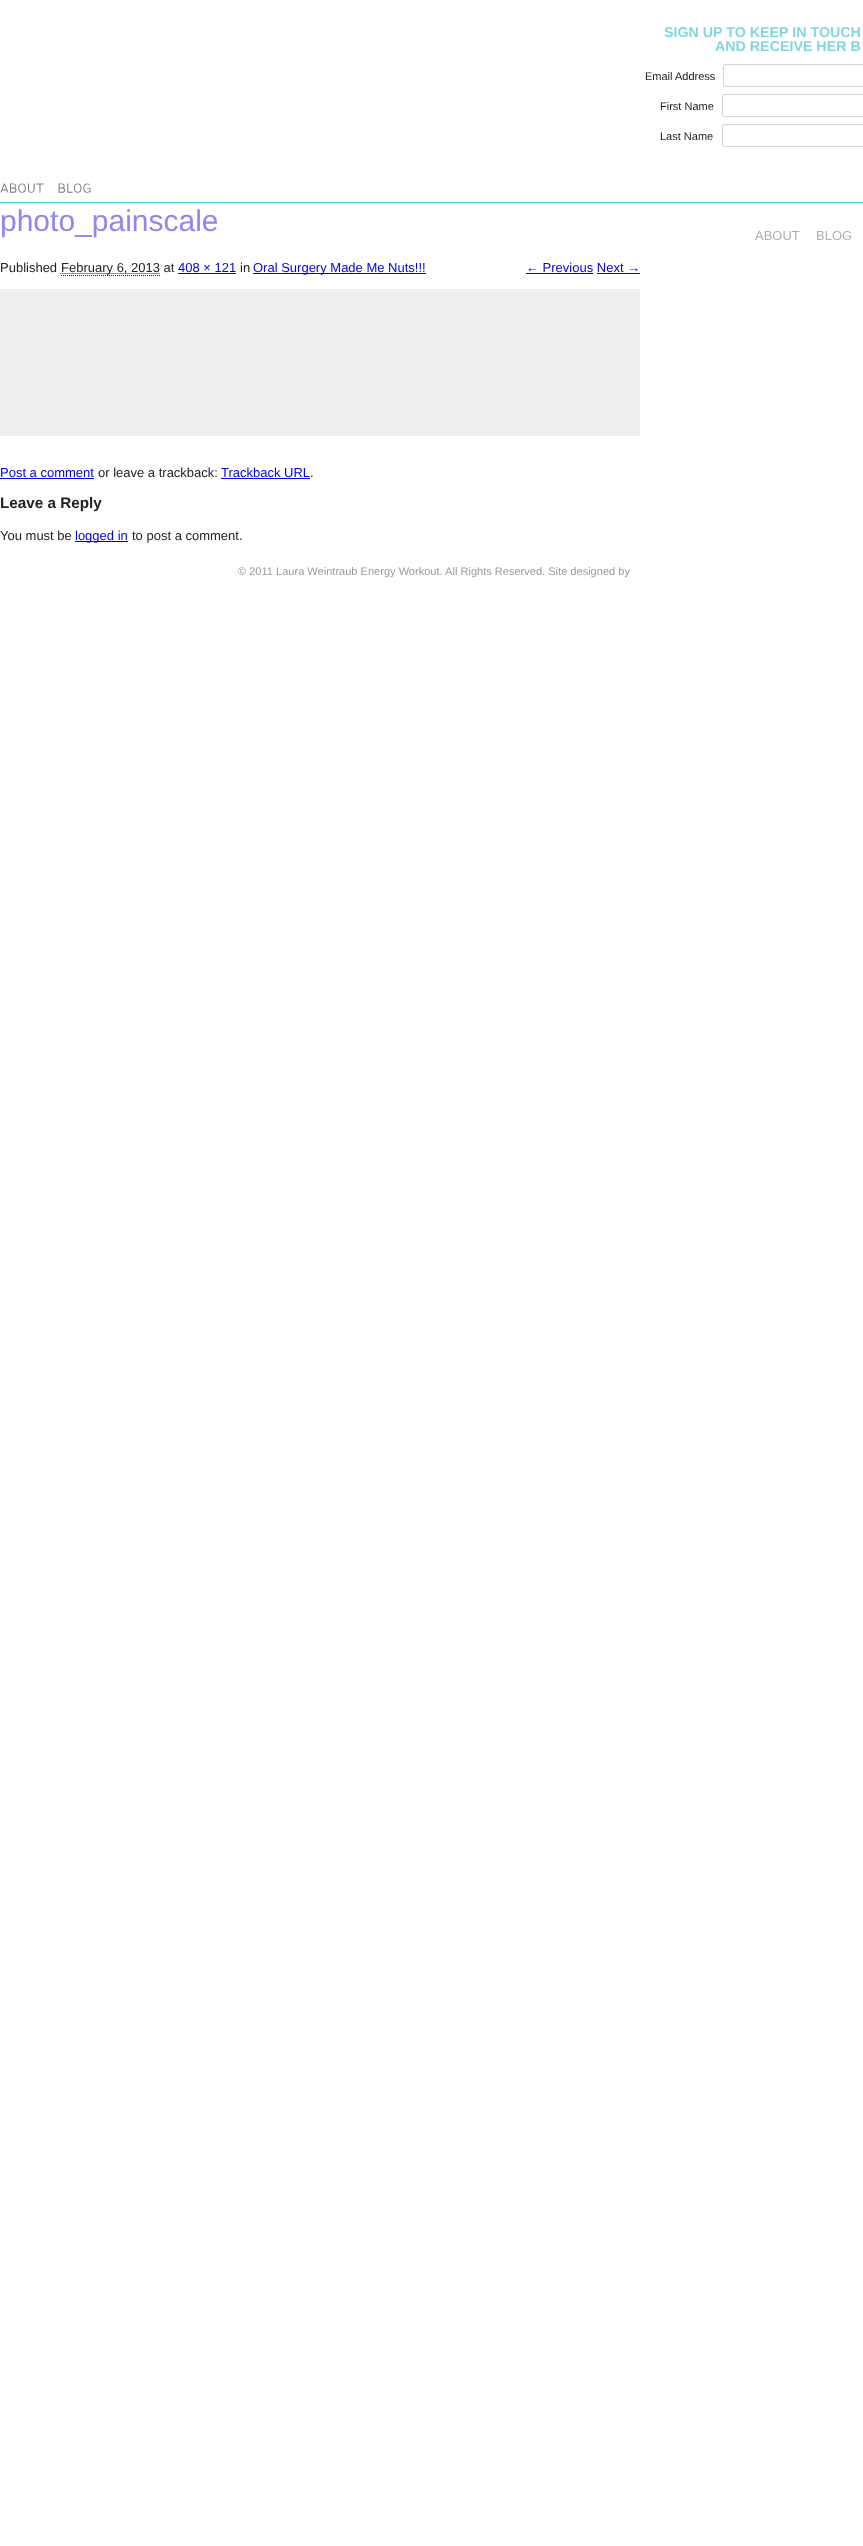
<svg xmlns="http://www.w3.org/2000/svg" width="863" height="2546">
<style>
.a{font:bold 14.25px Liberation Sans;fill:#84d6da}
.b{font:11px Liberation Sans;fill:#222}
.c{font:30px Liberation Sans;fill:#8f87ee}
.d{font:13px Liberation Sans;fill:#222}
.e{font:13px Liberation Sans;fill:#00e}
.f{font:bold 15.25px Liberation Sans;fill:#222}
.g{font:13px Liberation Sans;fill:#afaeae}
.h{font:11.05px Liberation Sans;fill:#9b9b9b}
</style>
<rect width="100%" height="100%" fill="#fff"/>
<path fill="#43c3c5" d="M0 202h863v1H0z"/>
<rect fill="none" stroke="#d5d4d4" x="723.5" y="64.5" width="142" height="22" rx="1.5"/>
<rect fill="none" stroke="#d5d4d4" x="722.5" y="94.5" width="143" height="22" rx="1.5"/>
<rect fill="none" stroke="#d5d4d4" x="722.5" y="124.5" width="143" height="22" rx="1.5"/>
<image href="1.png" x="0" y="183" width="44" height="10"/>
<image href="2.png" x="58" y="183" width="33" height="10"/>
<path fill="none" stroke="#222" stroke-dasharray="1 1" d="M61 275.5h99"/>
<path fill="none" stroke="#222" stroke-dasharray="1 1" d="M60.5 273.5h99"/>
<path fill="#00e" d="M178 273h58v1H178z"/>
<path fill="#00e" d="M253 273h173v1H253z"/>
<path fill="#00e" d="M526 273h67v1H526z"/>
<path fill="#00e" d="M597 273h43v1H597z"/>
<path fill="#eee" d="M0 289h640v147H0z"/>
<path fill="#00e" d="M0 478h94v1H0z"/>
<path fill="#00e" d="M221 478h89v1H221z"/>
<path fill="#00e" d="M75 541h53v1H75z"/>
<text class="a" x="664" y="37">SIGN UP TO KEEP IN TOUCH</text>
<text class="a" x="715" y="51">AND RECEIVE HER B</text>
<text class="b" x="645" y="80">Email Address</text>
<text class="b" x="660" y="110">First Name</text>
<text class="b" x="660" y="140">Last Name</text>
<text class="c" x="0" y="231">photo_painscale</text>
<text class="d" x="0" y="272">Published</text>
<text class="d" x="61" y="272">February 6, 2013 at</text>
<text class="e" x="178" y="272">408 × 121</text>
<text class="d" x="240" y="272">in</text>
<text class="e" x="253" y="272">Oral Surgery Made Me Nuts!!!</text>
<text class="e" x="526" y="272">← Previous Next →</text>
<text class="e" x="0" y="477">Post a comment</text>
<text class="d" x="98" y="477">or leave a trackback:</text>
<text class="e" x="221" y="477">Trackback URL</text>
<text class="d" x="310" y="477">.</text>
<text class="f" x="0" y="508">Leave a Reply</text>
<text class="d" x="0" y="540">You must be</text>
<text class="e" x="75" y="540">logged in</text>
<text class="d" x="132" y="540">to post a comment.</text>
<text class="g" x="755" y="240">ABOUT</text>
<text class="g" x="816" y="240">BLOG</text>
<text class="h" x="238" y="575">© 2011 Laura Weintraub Energy Workout. All Rights Reserved. Site designed by</text>
</svg>
